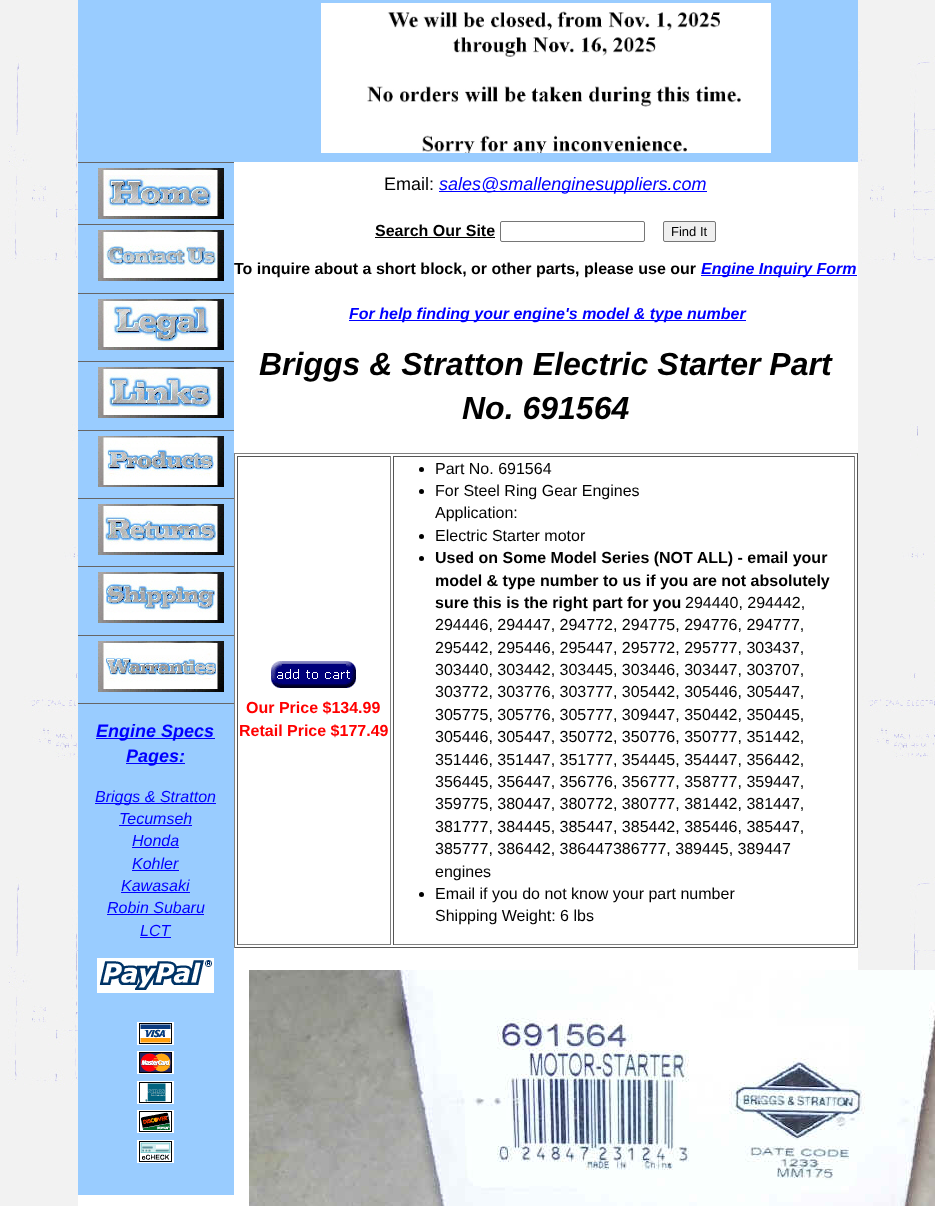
<svg xmlns="http://www.w3.org/2000/svg" width="935" height="1206">
<style>
.a{font:italic bold 18px Liberation Sans;fill:#00f}
.b{font:italic 16px Liberation Sans;fill:#00f}
.c{font:18px Liberation Sans;fill:#000}
.d{font:italic 18px Liberation Sans;fill:#00f}
.e{font:bold 16px Liberation Sans;fill:#000}
.f{font:13px Liberation Sans;fill:#000}
.g{font:italic bold 16px Liberation Sans;fill:#00f}
.h{font:italic bold 32px Liberation Sans;fill:#000}
.i{font:bold 16px Liberation Sans;fill:#f00}
.j{font:16px Liberation Sans;fill:#000}
</style>
<rect width="100%" height="100%" fill="#fff"/>
<image href="1.png" x="0" y="0" width="935" height="1206"/>
<path fill="#fff" d="M78 162h780v1044H78z"/>
<path fill="#9cf" d="M78 0h780v162H78z"/>
<image href="2.png" x="321" y="3" width="450" height="150"/>
<path fill="#9cf" d="M78 163h156v1032H78z"/>
<path fill="#666" d="M78 162h156v1H78z"/>
<path fill="#666" d="M78 224h156v1H78z"/>
<image href="3.png" x="98" y="168" width="126" height="51"/>
<path fill="#666" d="M78 293h156v1H78z"/>
<image href="4.png" x="98" y="230" width="126" height="51"/>
<path fill="#666" d="M78 361h156v1H78z"/>
<image href="5.png" x="98" y="299" width="126" height="51"/>
<path fill="#666" d="M78 430h156v1H78z"/>
<image href="6.png" x="98" y="367" width="126" height="51"/>
<path fill="#666" d="M78 498h156v1H78z"/>
<image href="7.png" x="98" y="436" width="126" height="51"/>
<path fill="#666" d="M78 566h156v1H78z"/>
<image href="8.png" x="98" y="504" width="126" height="51"/>
<path fill="#666" d="M78 635h156v1H78z"/>
<image href="9.png" x="98" y="572" width="126" height="51"/>
<path fill="#666" d="M78 703h156v1H78z"/>
<image href="10.png" x="98" y="641" width="126" height="51"/>
<path fill="#00f" d="M96 738h119v1H96z"/>
<path fill="#00f" d="M126 763h59v1H126z"/>
<path fill="#00f" d="M95 803h121v1H95z"/>
<path fill="#00f" d="M119 825h73v1H119z"/>
<path fill="#00f" d="M132 847h47v1H132z"/>
<path fill="#00f" d="M132 870h47v1H132z"/>
<path fill="#00f" d="M121 892h69v1H121z"/>
<path fill="#00f" d="M107 914h97v1H107z"/>
<path fill="#00f" d="M140 937h31v1H140z"/>
<image href="11.png" x="97" y="958" width="117" height="35"/>
<image href="12.png" x="137" y="1022" width="37" height="23"/>
<image href="13.png" x="137" y="1051" width="37" height="23"/>
<image href="14.png" x="137" y="1081" width="37" height="23"/>
<image href="15.png" x="137" y="1110" width="37" height="23"/>
<image href="16.png" x="137" y="1140" width="37" height="23"/>
<path fill="#00f" d="M439 191h268v1H439z"/>
<path fill="#000" d="M375 237h120v1H375z"/>
<rect fill="none" stroke="#767676" x="500.5" y="221.5" width="144" height="20" rx="1.5"/>
<rect fill="#efefef" stroke="#767676" x="663.5" y="221.5" width="52" height="20" rx="1.5"/>
<path fill="#00f" d="M701 275h156v1H701z"/>
<path fill="#00f" d="M349 320h397v1H349z"/>
<path fill="#808080" d="M234 453h624v1H234z"/>
<path fill="#555" d="M857 453h1v495H857z"/>
<path fill="#555" d="M234 947h624v1H234z"/>
<path fill="#808080" d="M234 453h1v495H234z"/>
<path fill="#555" d="M237 456h154v1H237z"/>
<path fill="#808080" d="M390 456h1v489H390z"/>
<path fill="#808080" d="M237 944h154v1H237z"/>
<path fill="#555" d="M237 456h1v489H237z"/>
<image href="17.png" x="271" y="661" width="85" height="27"/>
<path fill="#555" d="M393 456h462v1H393z"/>
<path fill="#808080" d="M854 456h1v489H854z"/>
<path fill="#808080" d="M393 944h462v1H393z"/>
<path fill="#555" d="M393 456h1v489H393z"/>
<circle fill="#000" cx="421.5" cy="469.5" r="2.5"/>
<circle fill="#000" cx="421.5" cy="491.5" r="2.5"/>
<circle fill="#000" cx="421.5" cy="536.5" r="2.5"/>
<circle fill="#000" cx="421.5" cy="558.5" r="2.5"/>
<circle fill="#000" cx="421.5" cy="894.5" r="2.5"/>
<image href="18.png" x="249" y="970" width="686" height="236"/>
<text class="a" x="96" y="737">Engine Specs</text>
<text class="a" x="126" y="762">Pages:</text>
<text class="b" x="95" y="802">Briggs &amp; Stratton</text>
<text class="b" x="119" y="824">Tecumseh</text>
<text class="b" x="132" y="846">Honda</text>
<text class="b" x="132" y="869">Kohler</text>
<text class="b" x="121" y="891">Kawasaki</text>
<text class="b" x="107" y="913">Robin Subaru</text>
<text class="b" x="140" y="936">LCT</text>
<text class="c" x="384" y="190">Email:</text>
<text class="d" x="439" y="190">sales@smallenginesuppliers.com</text>
<text class="e" x="375" y="236">Search Our Site</text>
<text class="f" x="671" y="236">Find It</text>
<text class="e" x="234" y="274">To inquire about a short block, or other parts, please use our</text>
<text class="g" x="701" y="274">Engine Inquiry Form</text>
<text class="g" x="349" y="319">For help finding your engine's model &amp; type number</text>
<text class="h" x="259" y="375">Briggs &amp; Stratton Electric Starter Part</text>
<text class="h" x="462" y="419">No. 691564</text>
<text class="i" x="246" y="713">Our Price $134.99</text>
<text class="i" x="239" y="736">Retail Price $177.49</text>
<text class="j" x="435" y="474">Part No. 691564</text>
<text class="j" x="435" y="496">For Steel Ring Gear Engines</text>
<text class="j" x="435" y="518">Application:</text>
<text class="j" x="435" y="541">Electric Starter motor</text>
<text class="e" x="435" y="563">Used on Some Model Series (NOT ALL) - email your</text>
<text class="e" x="435" y="586">model &amp; type number to us if you are not absolutely</text>
<text class="e" x="435" y="608">sure this is the right part for you</text>
<text class="j" x="685" y="608">294440, 294442,</text>
<text class="j" x="435" y="630">294446, 294447, 294772, 294775, 294776, 294777,</text>
<text class="j" x="435" y="653">295442, 295446, 295447, 295772, 295777, 303437,</text>
<text class="j" x="435" y="675">303440, 303442, 303445, 303446, 303447, 303707,</text>
<text class="j" x="435" y="697">303772, 303776, 303777, 305442, 305446, 305447,</text>
<text class="j" x="435" y="720">305775, 305776, 305777, 309447, 350442, 350445,</text>
<text class="j" x="435" y="742">305446, 305447, 350772, 350776, 350777, 351442,</text>
<text class="j" x="435" y="765">351446, 351447, 351777, 354445, 354447, 356442,</text>
<text class="j" x="435" y="787">356445, 356447, 356776, 356777, 358777, 359447,</text>
<text class="j" x="435" y="809">359775, 380447, 380772, 380777, 381442, 381447,</text>
<text class="j" x="435" y="832">381777, 384445, 385447, 385442, 385446, 385447,</text>
<text class="j" x="435" y="854">385777, 386442, 386447386777, 389445, 389447</text>
<text class="j" x="435" y="877">engines</text>
<text class="j" x="435" y="899">Email if you do not know your part number</text>
<text class="j" x="435" y="921">Shipping Weight: 6 lbs</text>
</svg>
